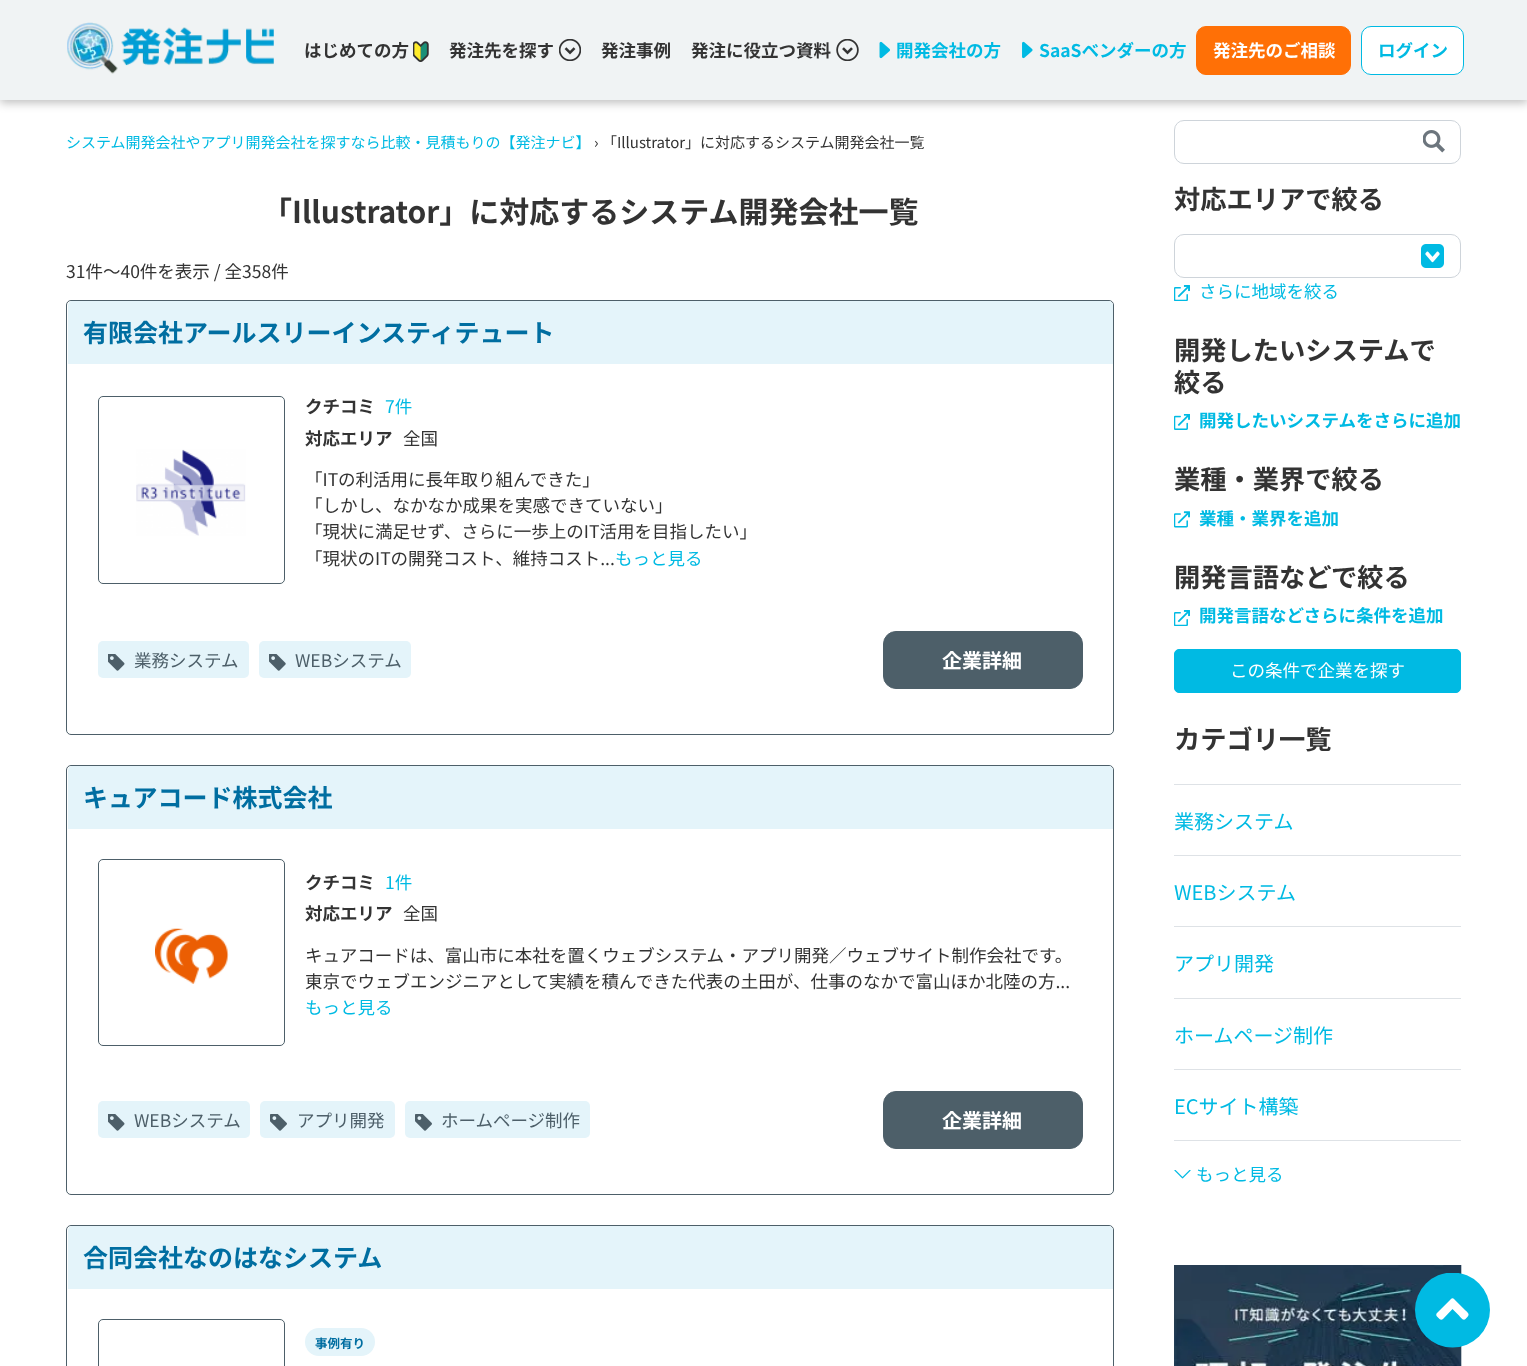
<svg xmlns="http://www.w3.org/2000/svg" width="1527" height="1366">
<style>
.a{font:bold 17.5px Noto Sans JP;fill:#333}
.b{font:bold 17.5px Noto Sans JP;fill:#00bae3}
.c{font:bold 17.5px Noto Sans JP;fill:#fff}
.d{font:15px Noto Sans JP;fill:#00bae3}
.e{font:15px Noto Sans JP;fill:#333}
.f{font:bold 30px Noto Sans JP;fill:#333}
.g{font:17.5px Noto Sans JP;fill:#333}
.h{font:bold 25px Noto Sans JP;fill:#006ea1}
.i{font:17.5px Noto Sans JP;fill:#00bae3}
.j{font:17.5px Noto Sans JP;fill:#4d5f69}
.k{font:bold 20px Noto Sans JP;fill:#fff}
.l{font:bold 12.5px Noto Sans JP;fill:#006ea1}
.m{font:bold 26.25px Noto Sans JP;fill:#333}
.n{font:17.5px Noto Sans JP;fill:#fff}
.o{font:20px Noto Sans JP;fill:#00bae3}
</style>
<defs>
<clipPath id="clip1"><path d="M1415 1273h75v75H1415z"/></clipPath>
</defs>
<rect width="100%" height="100%" fill="#fff"/>
<path fill="#00000040" filter="blur(5px)" d="M0 3h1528v100H0z"/>
<path fill="#f0f3f4" d="M0 0h1527v100H0z"/>
<image href="1.png" x="67" y="22" width="207" height="52"/>
<image href="2.png" x="413" y="41" width="16" height="21"/>
<image href="3.png" x="559" y="39" width="22" height="22"/>
<image href="4.png" x="836" y="39" width="23" height="22"/>
<image href="5.png" x="879" y="41" width="11" height="18"/>
<image href="6.png" x="1022" y="41" width="11" height="18"/>
<rect fill="#ff7006" stroke="#ff7006" x="1196.5" y="26.5" width="154" height="48" rx="9.5"/>
<rect fill="#fff" stroke="#00bae3" x="1361.5" y="26.5" width="102" height="48" rx="9.5"/>
<rect fill="none" stroke="#ced4da" x="1174.5" y="120.5" width="286" height="43" rx="9.5"/>
<image href="7.png" x="1423" y="130" width="22" height="23"/>
<rect fill="none" stroke="#4d5f69" x="66.5" y="300.5" width="1047" height="434" rx="4.5"/>
<path fill="#e4f4fa" d="M72 301h1037c2 0 4 2 4 4v59h-1045v-59c0-2 2-4 4-4z"/>
<rect fill="none" stroke="#4d5f69" x="98.5" y="396.5" width="186" height="187" rx="4.5"/>
<image href="8.png" x="136" y="449" width="110" height="87"/>
<rect fill="#e4f4fa" x="98" y="641" width="151" height="37" rx="5"/>
<image href="9.png" x="108" y="654" width="17" height="17"/>
<rect fill="#e4f4fa" x="259" y="641" width="152" height="37" rx="5"/>
<image href="10.png" x="269" y="654" width="17" height="17"/>
<rect fill="#4d5f69" stroke="#4d5f69" x="883.5" y="631.5" width="199" height="57" rx="12.5"/>
<rect fill="none" stroke="#4d5f69" x="66.5" y="765.5" width="1047" height="429" rx="4.5"/>
<path fill="#e4f4fa" d="M72 766h1037c2 0 4 2 4 4v59h-1045v-59c0-2 2-4 4-4z"/>
<rect fill="none" stroke="#4d5f69" x="98.5" y="859.5" width="186" height="186" rx="4.5"/>
<image href="11.png" x="155" y="928" width="74" height="56"/>
<rect fill="#e4f4fa" x="98" y="1101" width="152" height="37" rx="5"/>
<image href="9.png" x="108" y="1114" width="17" height="17"/>
<rect fill="#e4f4fa" x="260" y="1101" width="135" height="37" rx="5"/>
<image href="12.png" x="270" y="1114" width="17" height="17"/>
<rect fill="#e4f4fa" x="405" y="1101" width="185" height="37" rx="5"/>
<image href="12.png" x="415" y="1114" width="17" height="17"/>
<rect fill="#4d5f69" stroke="#4d5f69" x="883.5" y="1091.5" width="199" height="57" rx="12.5"/>
<rect fill="none" stroke="#4d5f69" x="66.5" y="1225.5" width="1047" height="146" rx="4.5"/>
<path fill="#e4f4fa" d="M72 1226h1037c2 0 4 2 4 4v59h-1045v-59c0-2 2-4 4-4z"/>
<rect fill="none" stroke="#4d5f69" x="98.5" y="1319.5" width="186" height="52" rx="4.5"/>
<rect fill="#e4f4fa" x="305" y="1328" width="70" height="28" rx="14"/>
<image href="13.png" x="1421" y="244" width="23" height="24"/>
<rect fill="none" stroke="#ced4da" x="1174.5" y="234.5" width="286" height="43" rx="9.5"/>
<image href="14.png" x="1174" y="285" width="16" height="16"/>
<image href="15.png" x="1174" y="414" width="16" height="16"/>
<image href="16.png" x="1174" y="511" width="16" height="17"/>
<image href="14.png" x="1174" y="610" width="16" height="16"/>
<rect fill="#00bae3" stroke="#00bae3" x="1174.5" y="649.5" width="286" height="43" rx="4.5"/>
<path fill="#dee2e6" d="M1174 784h287v1H1174z"/>
<path fill="#dee2e6" d="M1174 855h287v1H1174z"/>
<path fill="#dee2e6" d="M1174 926h287v1H1174z"/>
<path fill="#dee2e6" d="M1174 998h287v1H1174z"/>
<path fill="#dee2e6" d="M1174 1069h287v1H1174z"/>
<path fill="#dee2e6" d="M1174 1140h287v1H1174z"/>
<image href="17.png" x="1174" y="1170" width="17" height="9"/>
<image href="18.png" x="1174" y="1265" width="288" height="101"/>
<g clip-path="url(#clip1)">
<circle fill="#00bae3" cx="1452.5" cy="1310" r="37.5"/>
</g>
<path fill="#fff" d="M1454 1299l9.5 9.5c5 5 7.5 5.5 2 10.5c-2.5 2.5-5-2-6.5-3.5l-6.5-6.5l-9.5 10c-1 1-2.5 1-3.5 0l-2.5-2.5c-1-1-1-2.5 0-3.5l14-14c.5-1 2.5-1 3 0z"/>
<text class="a" x="304" y="57">はじめての方</text>
<text class="a" x="449" y="57">発注先を探す</text>
<text class="a" x="601" y="57">発注事例</text>
<text class="a" x="691" y="57">発注に役立つ資料</text>
<text class="b" x="896" y="57">開発会社の方</text>
<text class="b" x="1039" y="57">SaaSベンダーの方</text>
<text class="c" x="1213" y="57">発注先のご相談</text>
<text class="b" x="1378" y="57">ログイン</text>
<text class="d" x="66" y="148">システム開発会社やアプリ開発会社を探すなら比較・見積もりの【発注ナビ】</text>
<text class="e" x="594" y="148">› 「Illustrator」に対応するシステム開発会社一覧</text>
<text class="f" x="262" y="223">「Illustrator」に対応するシステム開発会社一覧</text>
<text class="g" x="66" y="278">31件〜40件を表示 / 全358件</text>
<text class="h" x="83" y="342">有限会社アールスリーインスティテュート</text>
<text class="a" x="305" y="413">クチコミ</text>
<text class="i" x="385" y="413">7件</text>
<text class="a" x="305" y="445">対応エリア</text>
<text class="g" x="403" y="445">全国</text>
<text class="g" x="305" y="486">「ITの利活用に長年取り組んできた」</text>
<text class="g" x="305" y="512">「しかし、なかなか成果を実感できていない」</text>
<text class="g" x="305" y="538">「現状に満足せず、さらに一歩上のIT活用を目指したい」</text>
<text class="g" x="305" y="565">「現状のITの開発コスト、維持コスト...</text>
<text class="i" x="615" y="565">もっと見る</text>
<text class="j" x="134" y="667">業務システム</text>
<text class="j" x="295" y="667">WEBシステム</text>
<text class="k" x="942" y="668">企業詳細</text>
<text class="h" x="83" y="807">キュアコード株式会社</text>
<text class="a" x="305" y="889">クチコミ</text>
<text class="i" x="385" y="889">1件</text>
<text class="a" x="305" y="920">対応エリア</text>
<text class="g" x="403" y="920">全国</text>
<text class="g" x="305" y="962">キュアコードは、富山市に本社を置くウェブシステム・アプリ開発／ウェブサイト制作会社です。</text>
<text class="g" x="305" y="988">東京でウェブエンジニアとして実績を積んできた代表の土田が、仕事のなかで富山ほか北陸の方...</text>
<text class="i" x="305" y="1014">もっと見る</text>
<text class="j" x="134" y="1127">WEBシステム</text>
<text class="j" x="297" y="1127">アプリ開発</text>
<text class="j" x="441" y="1127">ホームページ制作</text>
<text class="k" x="942" y="1128">企業詳細</text>
<text class="h" x="83" y="1267">合同会社なのはなシステム</text>
<text class="l" x="315" y="1348">事例有り</text>
<text class="m" x="1174" y="209">対応エリアで絞る</text>
<text class="i" x="1199" y="298">さらに地域を絞る</text>
<text class="m" x="1174" y="360">開発したいシステムで</text>
<text class="m" x="1174" y="392">絞る</text>
<text class="b" x="1199" y="427">開発したいシステムをさらに追加</text>
<text class="m" x="1174" y="489">業種・業界で絞る</text>
<text class="b" x="1199" y="525">業種・業界を追加</text>
<text class="m" x="1174" y="587">開発言語などで絞る</text>
<text class="b" x="1199" y="622">開発言語などさらに条件を追加</text>
<text class="n" x="1230" y="677">この条件で企業を探す</text>
<text class="m" x="1174" y="749">カテゴリ一覧</text>
<text class="o" x="1174" y="829">業務システム</text>
<text class="o" x="1174" y="900">WEBシステム</text>
<text class="o" x="1174" y="971">アプリ開発</text>
<text class="o" x="1174" y="1043">ホームページ制作</text>
<text class="o" x="1174" y="1114">ECサイト構築</text>
<text class="i" x="1196" y="1181">もっと見る</text>
</svg>
